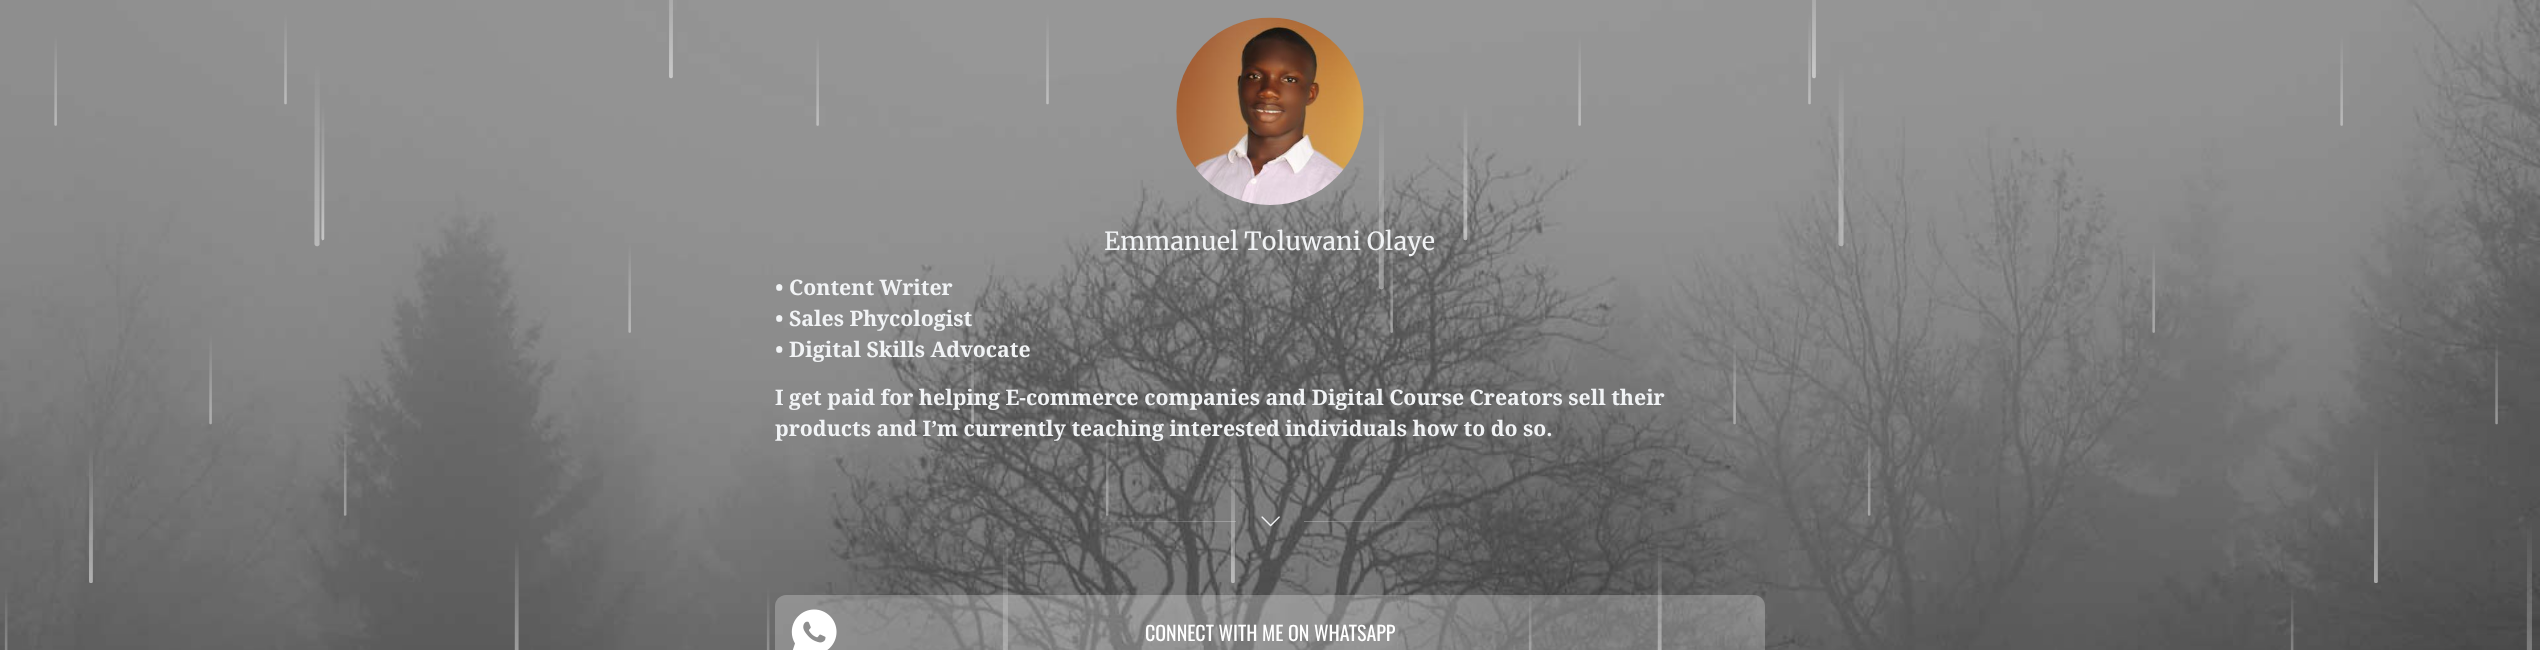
<svg xmlns="http://www.w3.org/2000/svg" width="2540" height="650">
<style>
.a{font:25px Merriweather;fill:#f1f3f5}
.b{font:bold 21.25px Noto Serif;fill:#f1f3f5}
.c{font:20px Oswald;fill:#fff}
</style>
<defs>
<linearGradient id="g1" gradientUnits="userSpaceOnUse" x1="1237" y1="522" x2="1089" y2="522"><stop offset="0" stop-color="#f1f3f5" stop-opacity="0.3"/><stop offset="1" stop-color="#f1f3f5" stop-opacity="0"/></linearGradient>
</defs>
<rect width="100%" height="100%" fill="#fff"/>
<image href="1.png" x="0" y="0" width="2540" height="650"/>
<image href="2.png" x="4" y="0" width="2528" height="650"/>
<image href="3.png" x="1176" y="17" width="188" height="188"/>
<path fill="url(#g1)" d="M1100 521h136v1H1100z"/>
<image href="4.png" x="1261" y="516" width="19" height="11"/>
<path fill="#ffffff40" d="M786 595h968c6 0 11 5 11 11v44h-990v-44c0-6 5-11 11-11z"/>
<image href="5.png" x="791" y="609" width="46" height="41"/>
<text class="a" x="1104" y="250">Emmanuel Toluwani Olaye</text>
<text class="b" x="775" y="295">• Content Writer</text>
<text class="b" x="775" y="326">• Sales Phycologist</text>
<text class="b" x="775" y="357">• Digital Skills Advocate</text>
<text class="b" x="775" y="405">I get paid for helping E-commerce companies and Digital Course Creators sell their</text>
<text class="b" x="775" y="436">products and I’m currently teaching interested individuals how to do so.</text>
<text class="c" x="1145" y="641">CONNECT WITH ME ON WHATSAPP</text>
</svg>
